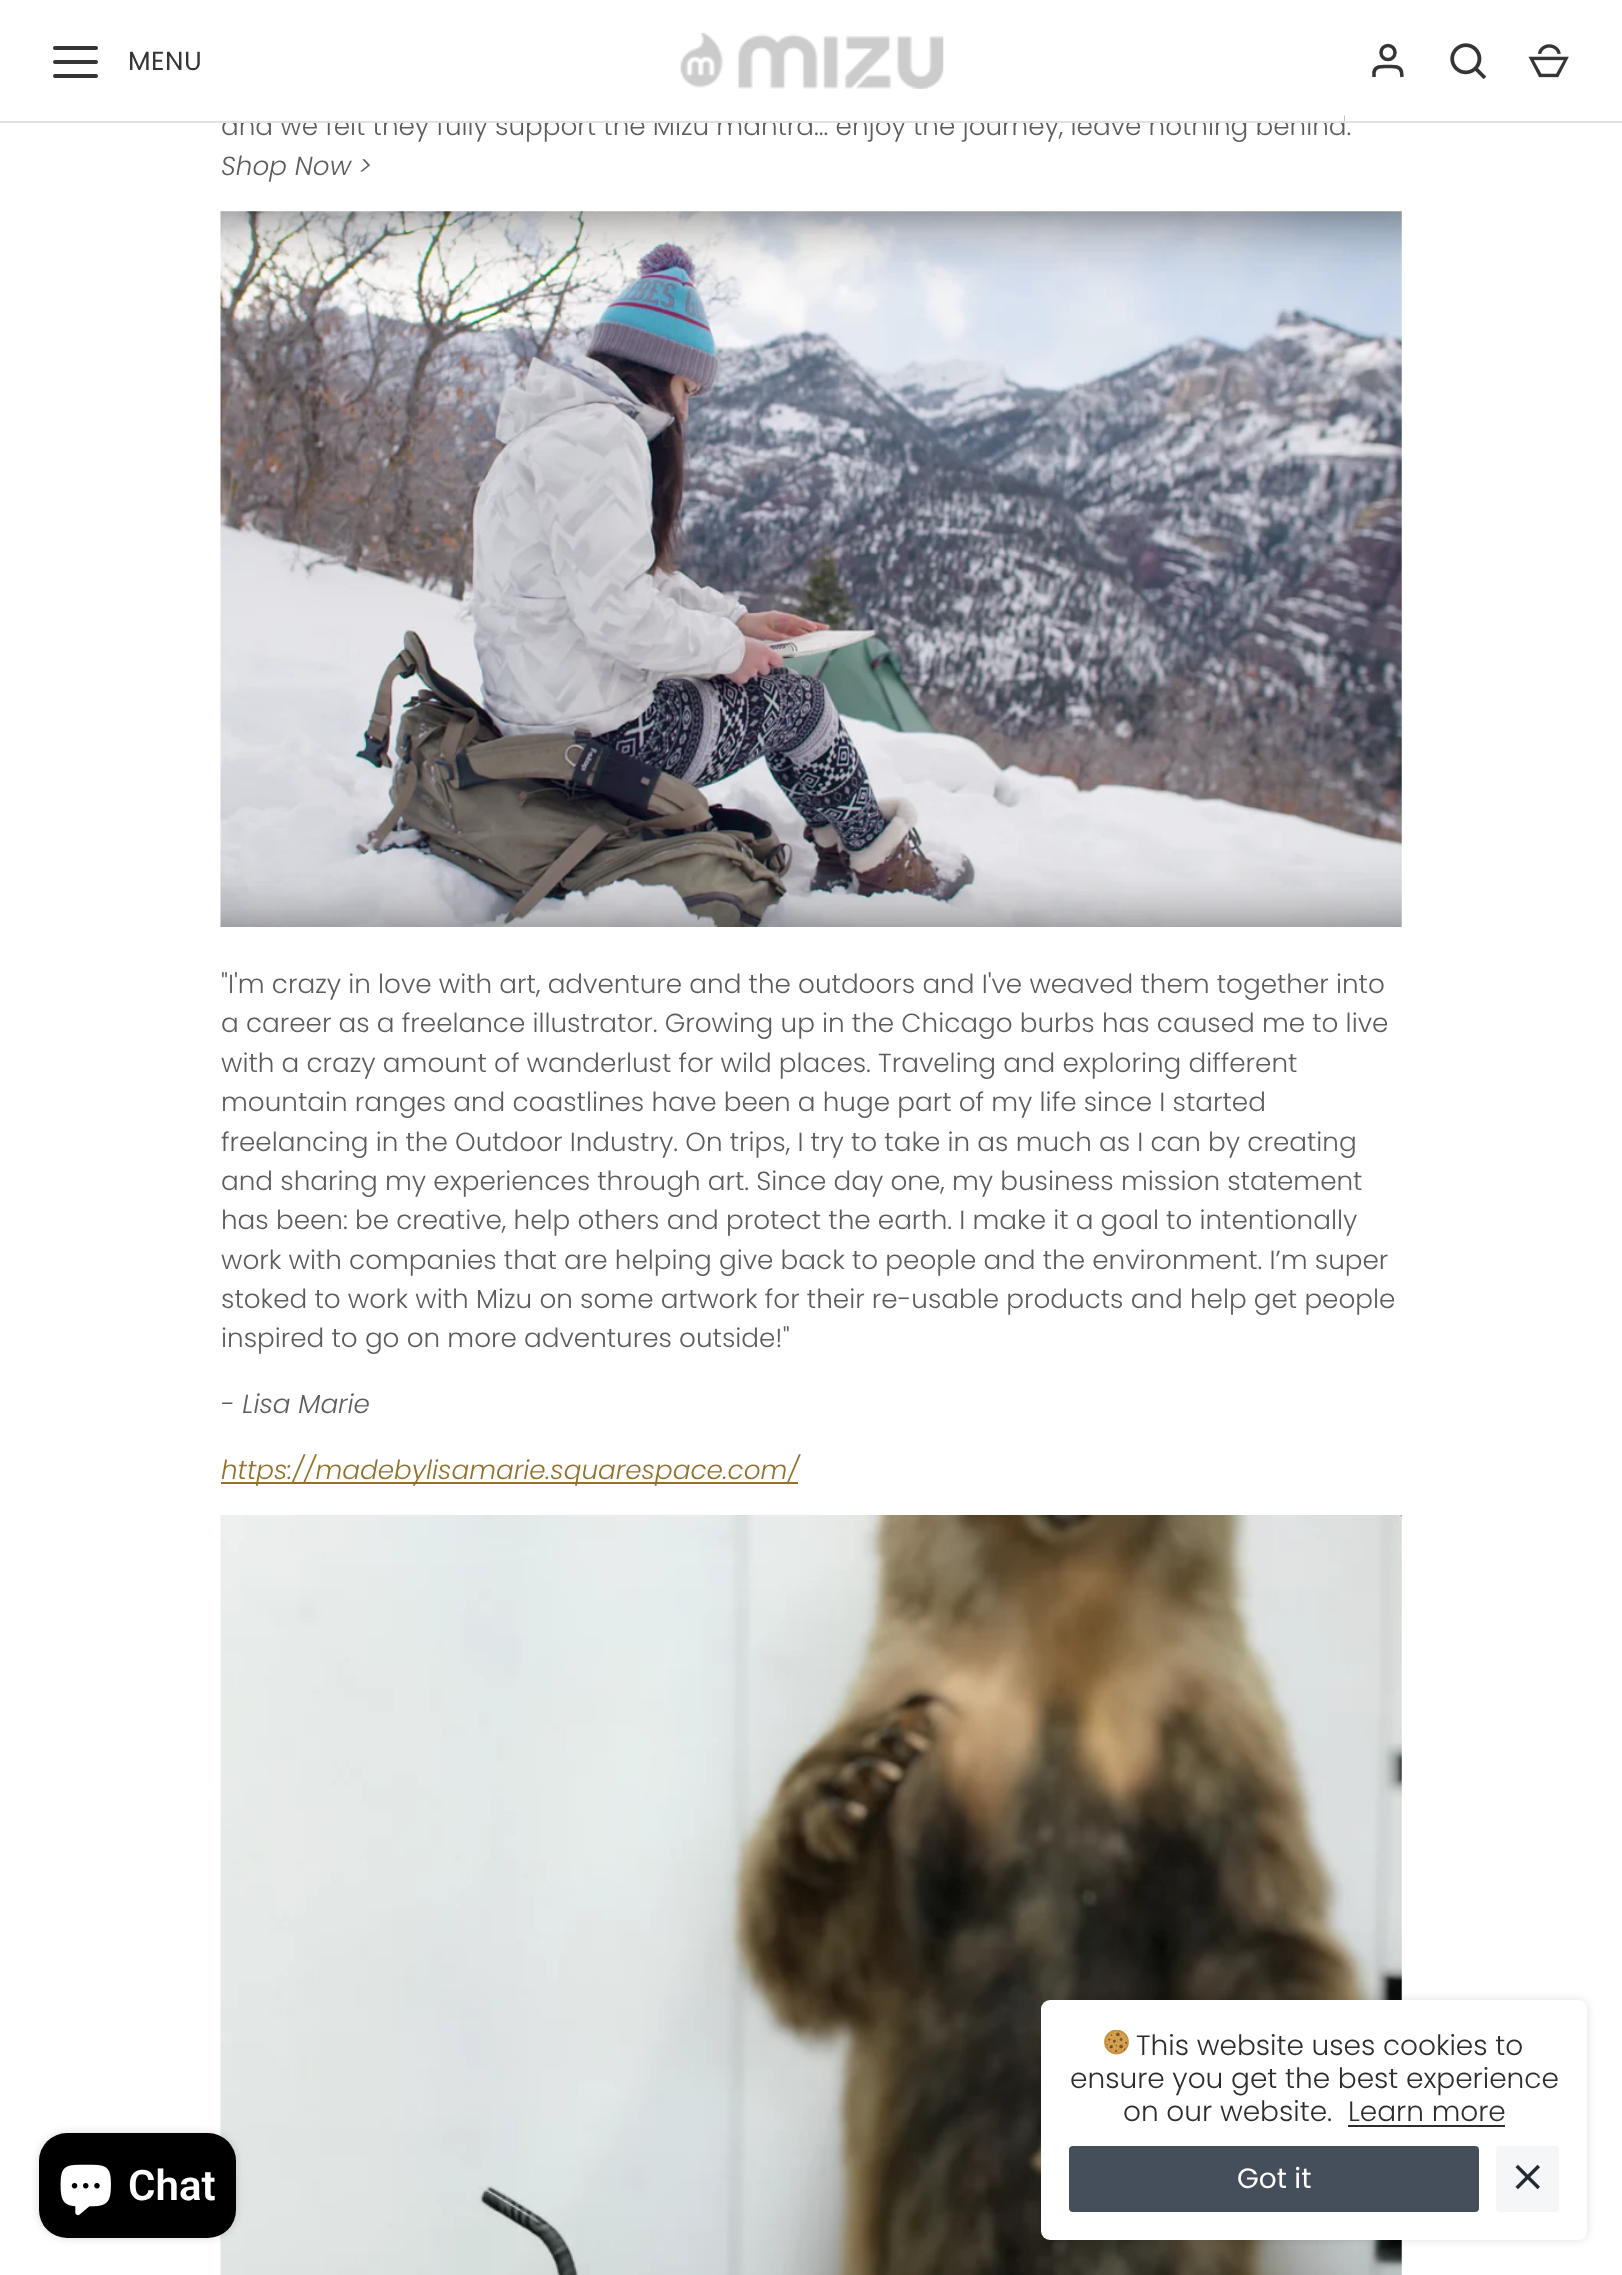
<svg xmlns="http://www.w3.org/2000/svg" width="1622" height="2275">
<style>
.a{font:26.25px Poppins;letter-spacing:0.5px;fill:#343534}
.b{font:300 26.25px Poppins;fill:#5c5c5c}
.c{font:italic 300 26.25px Poppins;fill:#5c5c5c}
.d{font:italic 300 26.25px Poppins;fill:#93712b}
.e{font:600 42px Roboto;fill:#fff}
.f{font:300 28px Poppins;fill:#2d2d2d}
.g{font:28px Poppins;fill:#fff}
</style>
<defs>
<clipPath id="clip1"><path d="M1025 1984h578v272h-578zm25 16h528c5 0 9 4 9 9v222c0 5-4 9-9 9h-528c-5 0-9-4-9-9v-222c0-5 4-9 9-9z" clip-rule="evenodd"/></clipPath>
</defs>
<rect width="100%" height="100%" fill="#fff"/>
<rect fill="#343534" x="53" y="46" width="45" height="4" rx="2"/>
<rect fill="#343534" x="53" y="60" width="45" height="4" rx="2"/>
<rect fill="#343534" x="53" y="74" width="45" height="4" rx="2"/>
<image href="1.png" x="680" y="32" width="264" height="57"/>
<circle fill="none" stroke="#343534" stroke-width="3.5" cx="1388" cy="52.5" r="7"/>
<path fill="none" stroke="#343534" stroke-width="3.5" d="M1402 77l-.5-5c-1.5-6.5-8.5-5.5-13.5-5.5c-5.5 0-12.5-1-14 5.5v5"/>
<image href="2.png" x="1450" y="43" width="37" height="37"/>
<image href="3.png" x="1528" y="44" width="41" height="34"/>
<image href="4.png" x="220" y="211" width="1182" height="716"/>
<path fill="#93712b" d="M221 1482h577v2H221z"/>
<image href="5.png" x="220" y="1515" width="1182" height="760"/>
<rect fill="#00000026" filter="blur(4.5px)" x="39" y="2133" width="197" height="105" rx="28"/>
<rect fill="#000" x="39" y="2133" width="197" height="105" rx="28"/>
<image href="6.png" x="60" y="2164" width="51" height="52"/>
<rect fill="#fff" x="1041" y="2000" width="546" height="240" rx="9"/>
<g clip-path="url(#clip1)">
<rect fill="#0000001f" filter="blur(5px)" x="1041" y="2000" width="546" height="240" rx="9"/>
</g>
<image href="7.png" x="1104" y="2030" width="25" height="25"/>
<path fill="#2d2d2d" d="M1348 2125h157v2H1348z"/>
<rect fill="#454f5b" x="1069" y="2146" width="410" height="66" rx="4"/>
<rect fill="#f4f6f8" x="1496" y="2146" width="63" height="66" rx="4"/>
<image href="8.png" x="1515" y="2164" width="25" height="26"/>
<text class="a" x="128" y="70">MENU</text>
<text class="b" x="221" y="135">and we felt they fully support the Mizu mantra... enjoy the journey, leave nothing behind.</text>
<path fill="#e1e1e1" d="M0 121h1622v2H0z"/>
<path fill="#fff" d="M226 115h1118v6H226z"/>
<text class="c" x="221" y="175">Shop Now &gt;</text>
<text class="b" x="221" y="993">"I'm crazy in love with art, adventure and the outdoors and I've weaved them together into</text>
<text class="b" x="221" y="1032">a career as a freelance illustrator. Growing up in the Chicago burbs has caused me to live</text>
<text class="b" x="221" y="1072">with a crazy amount of wanderlust for wild places. Traveling and exploring different</text>
<text class="b" x="221" y="1111">mountain ranges and coastlines have been a huge part of my life since I started</text>
<text class="b" x="221" y="1151">freelancing in the Outdoor Industry. On trips, I try to take in as much as I can by creating</text>
<text class="b" x="221" y="1190">and sharing my experiences through art. Since day one, my business mission statement</text>
<text class="b" x="221" y="1229">has been: be creative, help others and protect the earth. I make it a goal to intentionally</text>
<text class="b" x="221" y="1269">work with companies that are helping give back to people and the environment. I’m super</text>
<text class="b" x="221" y="1308">stoked to work with Mizu on some artwork for their re-usable products and help get people</text>
<text class="b" x="221" y="1347">inspired to go on more adventures outside!"</text>
<text class="c" x="221" y="1413">- Lisa Marie</text>
<text class="d" x="221" y="1479">https://madebylisamarie.squarespace.com/</text>
<text class="e" x="128" y="2200">Chat</text>
<text class="f" x="1136" y="2055">This website uses cookies to</text>
<text class="f" x="1070" y="2088">ensure you get the best experience</text>
<text class="f" x="1123" y="2121">on our website.</text>
<text class="f" x="1348" y="2121">Learn more</text>
<text class="g" x="1237" y="2188">Got it</text>
</svg>
